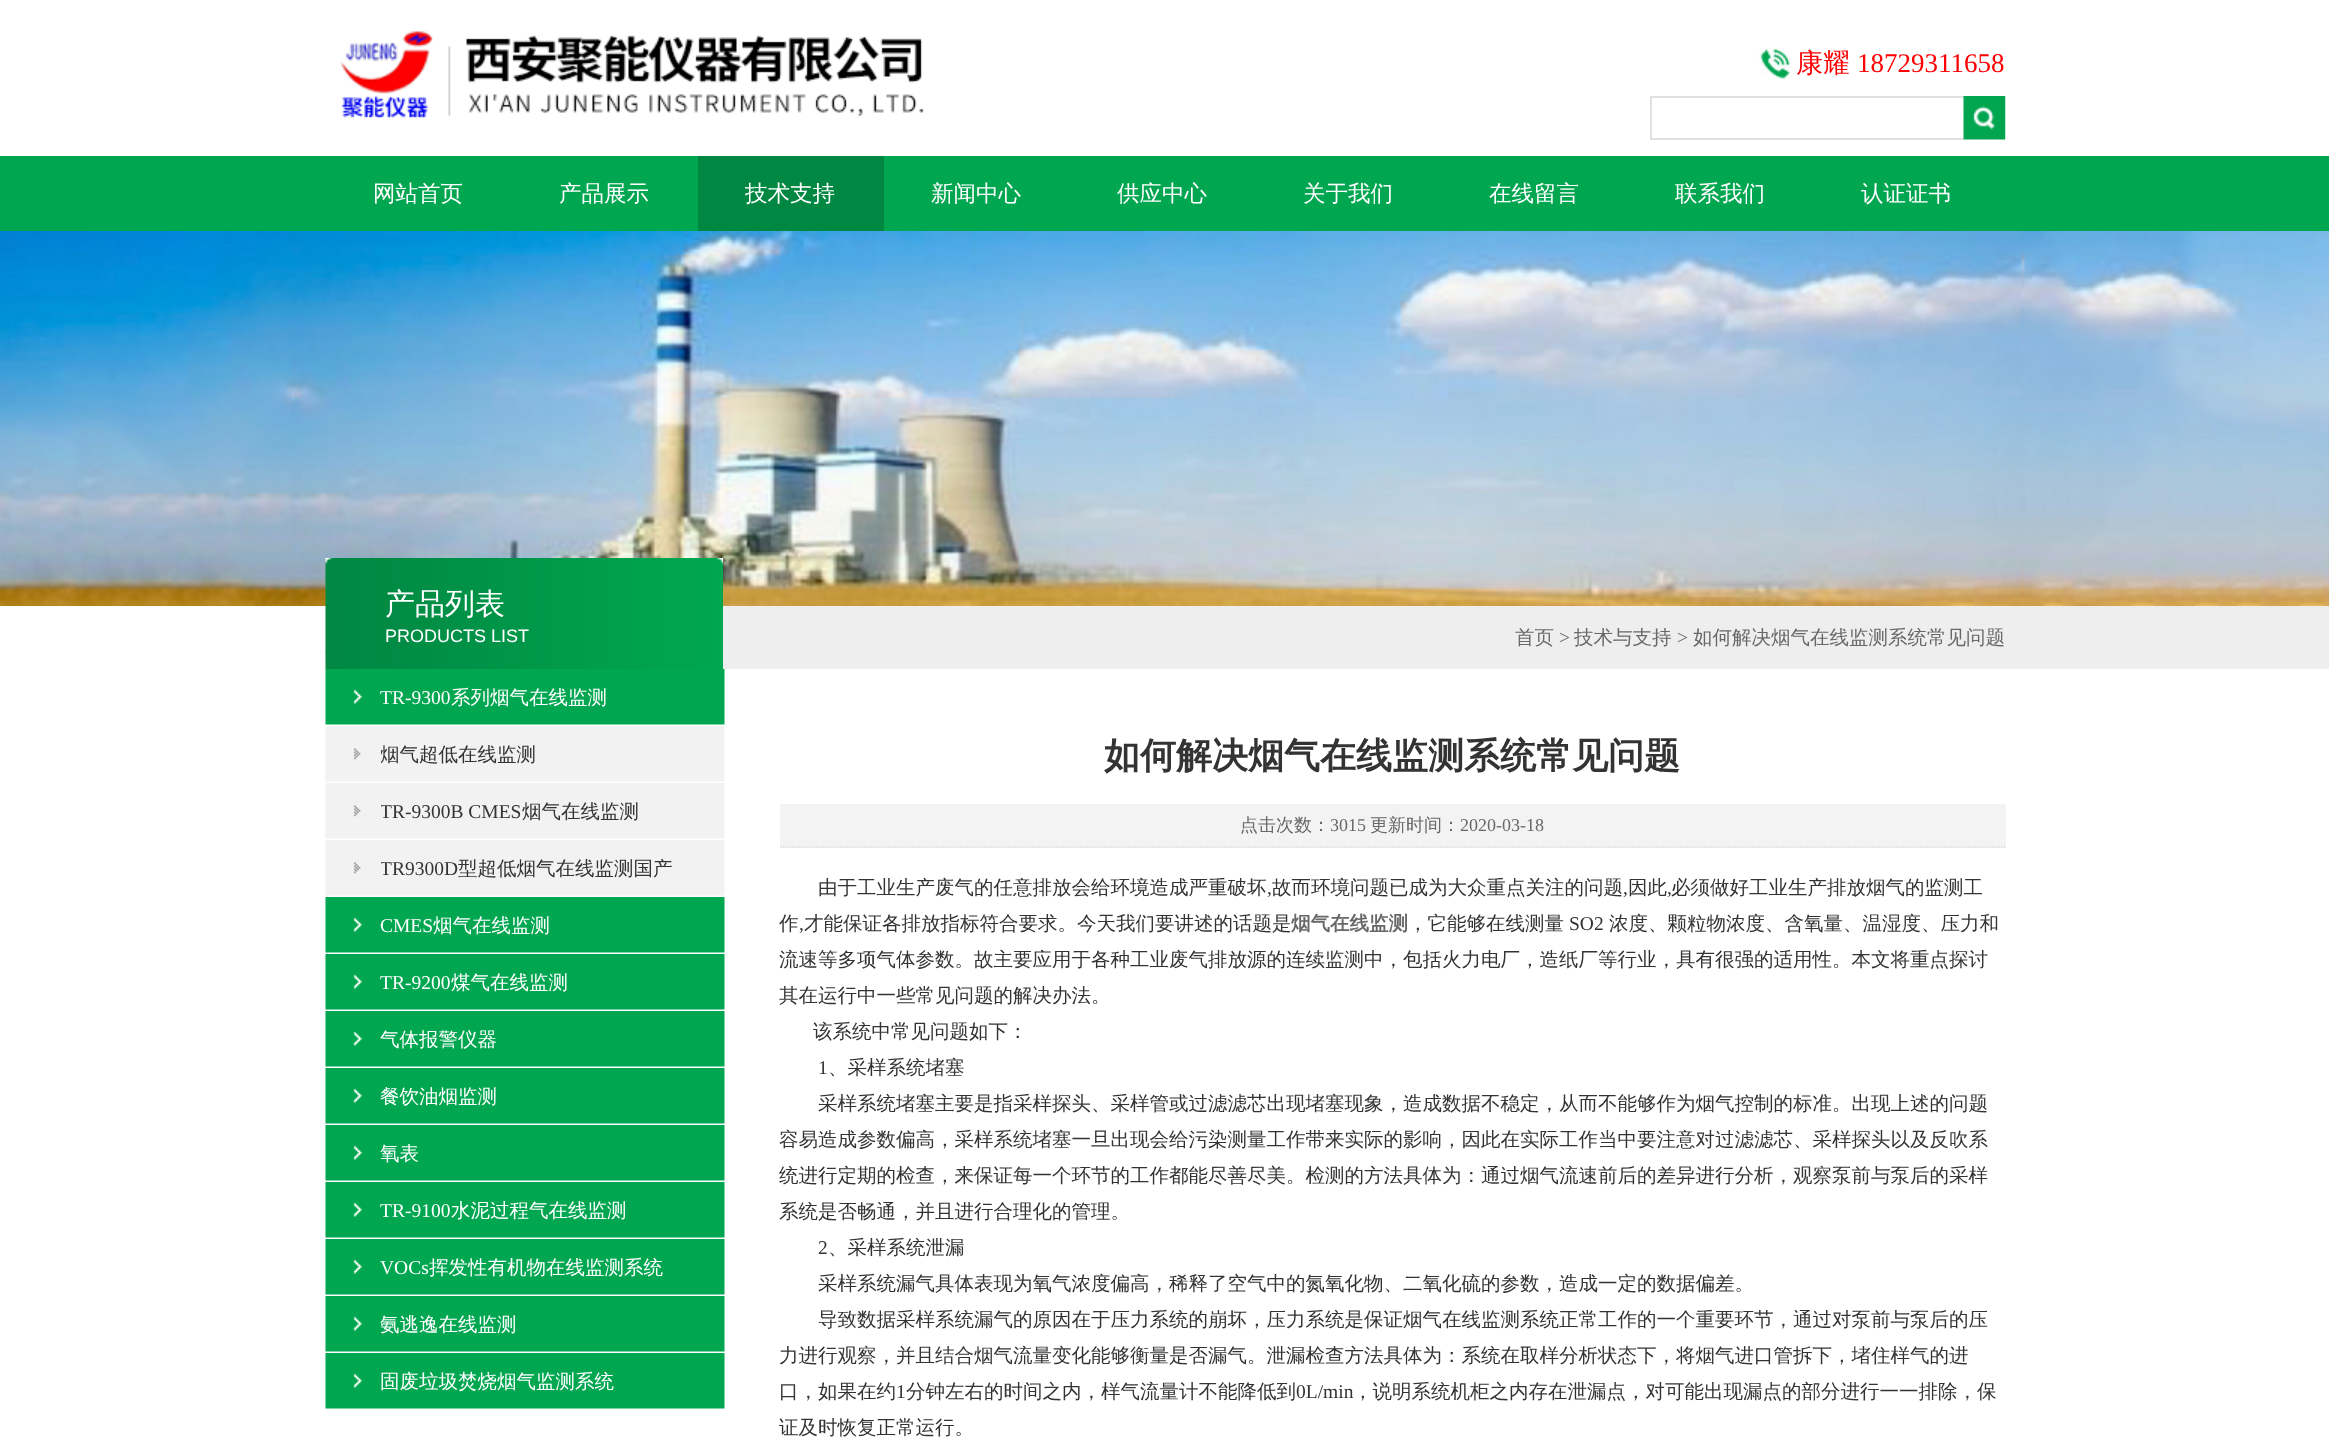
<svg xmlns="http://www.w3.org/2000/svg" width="2329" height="1439">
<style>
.a{font:500 27px WenQuanYi Zen Hei;fill:#fe0002}
.b{font:27px Liberation Serif;fill:#fe0002}
.c{font:500 22.5px WenQuanYi Zen Hei;fill:#fff}
.d{font:500 30px WenQuanYi Zen Hei;fill:#fff}
.e{font:18px Liberation Sans;fill:#fff}
.f{font:19.5px Liberation Serif;fill:#fff}
.g{font:500 19.5px WenQuanYi Zen Hei;fill:#fff}
.h{font:500 19.5px WenQuanYi Zen Hei;fill:#333}
.i{font:19.5px Liberation Serif;fill:#333}
.j{font:500 19.5px WenQuanYi Zen Hei;fill:#686868}
.k{font:19.5px Liberation Serif;fill:#686868}
.l{font:bold 36px WenQuanYi Zen Hei;fill:#333}
.m{font:500 18px WenQuanYi Zen Hei;fill:#686868}
.n{font:18px Liberation Serif;fill:#686868}
.o{font:bold 19.5px WenQuanYi Zen Hei;fill:#686868}
</style>
<defs>
<clipPath id="clip1"><path d="M381 726h345v56H381z"/></clipPath>
<clipPath id="clip2"><path d="M381 783h345v56H381z"/></clipPath>
<clipPath id="clip3"><path d="M381 840h345v56H381z"/></clipPath>
</defs>
<rect width="100%" height="100%" fill="#fff"/>
<image href="1.png" x="2006" y="606" width="323" height="63"/>
<image href="2.png" x="340" y="31" width="585" height="87"/>
<image href="3.png" x="1759" y="48" width="34" height="32"/>
<path fill="#e1e1e1" d="M1650 96h314v2H1650z"/>
<path fill="#e1e1e1" d="M1650 138h314v2H1650z"/>
<path fill="#e1e1e1" d="M1650 96h2v44H1650z"/>
<image href="4.png" x="1963" y="96" width="43" height="44"/>
<path fill="#00a650" d="M0 156h2329v75H0z"/>
<path fill="#008742" d="M698 156h186v75H698z"/>
<image href="5.png" x="0" y="231" width="2329" height="375"/>
<path fill="none" stroke="#a9a9a9" stroke-width="1.5" stroke-dasharray="1.5 1.5" d="M325.5 652h1680"/>
<image href="6.png" x="325" y="558" width="398" height="111"/>
<image href="7.png" x="325" y="669" width="400" height="56"/>
<image href="8.png" x="325" y="726" width="400" height="56"/>
<image href="8.png" x="325" y="783" width="400" height="56"/>
<image href="8.png" x="325" y="840" width="400" height="56"/>
<image href="7.png" x="325" y="897" width="400" height="56"/>
<image href="7.png" x="325" y="954" width="400" height="56"/>
<image href="7.png" x="325" y="1011" width="400" height="56"/>
<image href="7.png" x="325" y="1068" width="400" height="56"/>
<image href="7.png" x="325" y="1125" width="400" height="56"/>
<image href="7.png" x="325" y="1182" width="400" height="56"/>
<image href="7.png" x="325" y="1239" width="400" height="56"/>
<image href="7.png" x="325" y="1296" width="400" height="56"/>
<image href="7.png" x="325" y="1353" width="400" height="56"/>
<path fill="#eee" d="M723 606h1283v63H723z"/>
<path fill="#f3f3f3" d="M780 804h1226v44H780z"/>
<path fill="none" stroke="#ddd" stroke-width="1.5" stroke-dasharray="1.5 1.5" d="M780 847h1225.5"/>
<text class="a" x="1796" y="72">康耀</text>
<text class="b" x="1857" y="72">18729311658</text>
<text class="c" x="373" y="201">网站首页</text>
<text class="c" x="559" y="201">产品展示</text>
<text class="c" x="745" y="201">技术支持</text>
<text class="c" x="931" y="201">新闻中心</text>
<text class="c" x="1117" y="201">供应中心</text>
<text class="c" x="1303" y="201">关于我们</text>
<text class="c" x="1489" y="201">在线留言</text>
<text class="c" x="1675" y="201">联系我们</text>
<text class="c" x="1861" y="201">认证证书</text>
<text class="d" x="385" y="614">产品列表</text>
<text class="e" x="385" y="642">PRODUCTS LIST</text>
<text class="f" x="380" y="704">TR-9300</text>
<text class="g" x="451" y="704">系列烟气在线监测</text>
<g clip-path="url(#clip1)">
<text class="h" x="380" y="761">烟气超低在线监测</text>
</g>
<g clip-path="url(#clip2)">
<text class="i" x="380" y="818">TR-9300B CMES</text>
</g>
<text class="h" x="522" y="818">烟气在线监测</text>
<g clip-path="url(#clip3)">
<text class="i" x="380" y="875">TR9300D</text>
</g>
<text class="h" x="458" y="875">型超低烟气在线监测国产</text>
<text class="f" x="380" y="932">CMES</text>
<text class="g" x="433" y="932">烟气在线监测</text>
<text class="f" x="380" y="989">TR-9200</text>
<text class="g" x="451" y="989">煤气在线监测</text>
<text class="g" x="380" y="1046">气体报警仪器</text>
<text class="g" x="380" y="1103">餐饮油烟监测</text>
<text class="g" x="380" y="1160">氧表</text>
<text class="f" x="380" y="1217">TR-9100</text>
<text class="g" x="451" y="1217">水泥过程气在线监测</text>
<text class="f" x="380" y="1274">VOCs</text>
<text class="g" x="429" y="1274">挥发性有机物在线监测系统</text>
<text class="g" x="380" y="1331">氨逃逸在线监测</text>
<text class="g" x="380" y="1388">固废垃圾焚烧烟气监测系统</text>
<text class="j" x="1515" y="644">首页</text>
<text class="k" x="1559" y="644">&gt;</text>
<text class="j" x="1574" y="644">技术与支持</text>
<text class="k" x="1677" y="644">&gt;</text>
<text class="j" x="1693" y="644">如何解决烟气在线监测系统常见问题</text>
<text class="l" x="1104" y="768">如何解决烟气在线监测系统常见问题</text>
<text class="m" x="1240" y="831">点击次数：</text>
<text class="n" x="1330" y="831">3015</text>
<text class="m" x="1370" y="831">更新时间：</text>
<text class="n" x="1460" y="831">2020-03-18</text>
<text class="h" x="818" y="894">由于工业生产废气的任意排放会给环境造成严重破坏</text>
<text class="i" x="1267" y="894">,</text>
<text class="h" x="1272" y="894">故而环境问题已成为大众重点关注的问题</text>
<text class="i" x="1623" y="894">,</text>
<text class="h" x="1628" y="894">因此</text>
<text class="i" x="1667" y="894">,</text>
<text class="h" x="1671" y="894">必须做好工业生产排放烟气的监测工</text>
<text class="h" x="779" y="930">作</text>
<text class="i" x="799" y="930">,</text>
<text class="h" x="804" y="930">才能保证各排放指标符合要求。今天我们要讲述的话题是</text>
<text class="o" x="1291" y="930">烟气在线监测</text>
<text class="h" x="1408" y="930">，它能够在线测量</text>
<text class="i" x="1569" y="930">SO2</text>
<text class="h" x="1609" y="930">浓度、颗粒物浓度、含氧量、温湿度、压力和</text>
<text class="h" x="779" y="966">流速等多项气体参数。故主要应用于各种工业废气排放源的连续监测中，包括火力电厂，造纸厂等行业，具有很强的适用性。本文将重点探讨</text>
<text class="h" x="779" y="1002">其在运行中一些常见问题的解决办法。</text>
<text class="h" x="813" y="1038">该系统中常见问题如下：</text>
<text class="i" x="818" y="1074">1</text>
<text class="h" x="828" y="1074">、采样系统堵塞</text>
<text class="h" x="818" y="1110">采样系统堵塞主要是指采样探头、采样管或过滤滤芯出现堵塞现象，造成数据不稳定，从而不能够作为烟气控制的标准。出现上述的问题</text>
<text class="h" x="779" y="1146">容易造成参数偏高，采样系统堵塞一旦出现会给污染测量工作带来实际的影响，因此在实际工作当中要注意对过滤滤芯、采样探头以及反吹系</text>
<text class="h" x="779" y="1182">统进行定期的检查，来保证每一个环节的工作都能尽善尽美。检测的方法具体为：通过烟气流速前后的差异进行分析，观察泵前与泵后的采样</text>
<text class="h" x="779" y="1218">系统是否畅通，并且进行合理化的管理。</text>
<text class="i" x="818" y="1254">2</text>
<text class="h" x="828" y="1254">、采样系统泄漏</text>
<text class="h" x="818" y="1290">采样系统漏气具体表现为氧气浓度偏高，稀释了空气中的氮氧化物、二氧化硫的参数，造成一定的数据偏差。</text>
<text class="h" x="818" y="1326">导致数据采样系统漏气的原因在于压力系统的崩坏，压力系统是保证烟气在线监测系统正常工作的一个重要环节，通过对泵前与泵后的压</text>
<text class="h" x="779" y="1362">力进行观察，并且结合烟气流量变化能够衡量是否漏气。泄漏检查方法具体为：系统在取样分析状态下，将烟气进口管拆下，堵住样气的进</text>
<text class="h" x="779" y="1398">口，如果在约</text>
<text class="i" x="896" y="1398">1</text>
<text class="h" x="906" y="1398">分钟左右的时间之内，样气流量计不能降低到</text>
<text class="i" x="1296" y="1398">0L/min</text>
<text class="h" x="1353" y="1398">，说明系统机柜之内存在泄漏点，对可能出现漏点的部分进行一一排除，保</text>
<text class="h" x="779" y="1434">证及时恢复正常运行。</text>
</svg>
